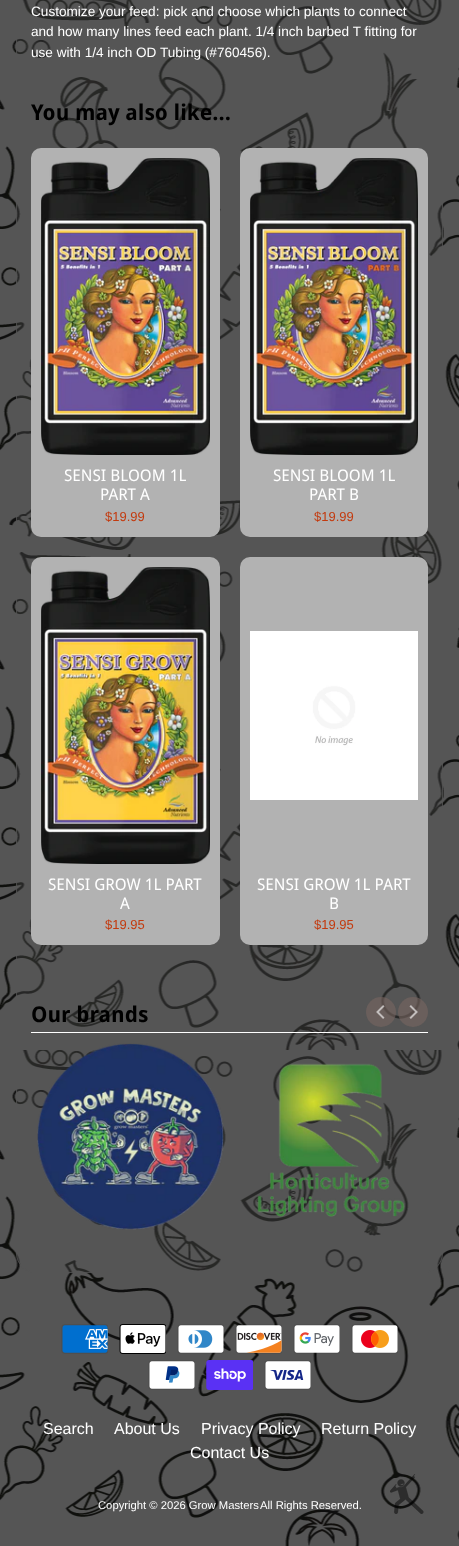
<svg xmlns="http://www.w3.org/2000/svg" width="459" height="1546">
<style>
.a{font:13.6px Liberation Sans;fill:#fff}
.b{font:bold 21.75px Droid Sans;fill:#000}
.c{font:16px Droid Sans;fill:#fff}
.d{font:13px Liberation Sans;fill:#c33a0e}
.e{font:16px Liberation Sans;fill:#fff}
.f{font:11.25px Liberation Sans;fill:#fff}
</style>
<rect width="100%" height="100%" fill="#555"/>
<image href="1.png" x="0" y="0" width="459" height="1546"/>
<rect fill="#55555559" x="16" y="-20" width="427" height="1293" rx="20"/>
<rect fill="none" stroke="#555555b3" x="16.5" y="-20.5" width="426" height="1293" rx="19.5"/>
<rect fill="#b2b2b2" x="31" y="148" width="189" height="389" rx="10"/>
<image href="2.png" x="41" y="158" width="169" height="297"/>
<rect fill="#b2b2b2" x="240" y="148" width="188" height="389" rx="10"/>
<image href="3.png" x="250" y="158" width="168" height="297"/>
<rect fill="#b2b2b2" x="31" y="557" width="189" height="388" rx="10"/>
<image href="4.png" x="41" y="567" width="169" height="297"/>
<rect fill="#b2b2b2" x="240" y="557" width="188" height="388" rx="10"/>
<image href="5.png" x="250" y="631" width="168" height="169"/>
<circle fill="#78666099" cx="381" cy="1012" r="15"/>
<image href="6.png" x="376" y="1005" width="9" height="14"/>
<circle fill="#78666099" cx="413" cy="1012" r="15"/>
<image href="7.png" x="409" y="1005" width="9" height="14"/>
<image href="8.png" x="37" y="1043" width="187" height="187"/>
<image href="9.png" x="257" y="1063" width="148" height="154"/>
<path fill="#fff" d="M31 1032h397v1H31z"/>
<image href="10.png" x="61" y="1324" width="47" height="30"/>
<image href="11.png" x="119" y="1324" width="47" height="30"/>
<image href="12.png" x="177" y="1324" width="47" height="30"/>
<image href="13.png" x="235" y="1324" width="47" height="30"/>
<image href="14.png" x="293" y="1324" width="47" height="30"/>
<image href="15.png" x="351" y="1324" width="47" height="30"/>
<image href="16.png" x="148" y="1360" width="47" height="30"/>
<image href="17.png" x="206" y="1360" width="47" height="30"/>
<image href="18.png" x="264" y="1360" width="47" height="30"/>
<image href="19.png" x="390" y="1474" width="34" height="40"/>
<text class="a" x="31" y="16">Customize your feed: pick and choose which plants to connect</text>
<text class="a" x="31" y="36">and how many lines feed each plant. 1/4 inch barbed T fitting for</text>
<text class="a" x="31" y="57">use with 1/4 inch OD Tubing (#760456).</text>
<text class="b" x="31" y="120">You may also like...</text>
<text class="c" x="64" y="481">SENSI BLOOM 1L</text>
<text class="c" x="100" y="500">PART A</text>
<text class="d" x="105" y="521">$19.99</text>
<text class="c" x="273" y="481">SENSI BLOOM 1L</text>
<text class="c" x="309" y="500">PART B</text>
<text class="d" x="314" y="521">$19.99</text>
<text class="c" x="48" y="890">SENSI GROW 1L PART</text>
<text class="c" x="120" y="909">A</text>
<text class="d" x="105" y="929">$19.95</text>
<text class="c" x="257" y="890">SENSI GROW 1L PART</text>
<text class="c" x="329" y="909">B</text>
<text class="d" x="314" y="929">$19.95</text>
<text class="b" x="31" y="1022">Our brands</text>
<text class="e" x="43" y="1434">Search</text>
<text class="e" x="114" y="1434">About Us</text>
<text class="e" x="201" y="1434">Privacy Policy</text>
<text class="e" x="321" y="1434">Return Policy</text>
<text class="e" x="190" y="1458">Contact Us</text>
<text class="f" x="98" y="1509">Copyright © 2026 Grow Masters</text>
<text class="f" x="260" y="1509">All Rights Reserved.</text>
</svg>
